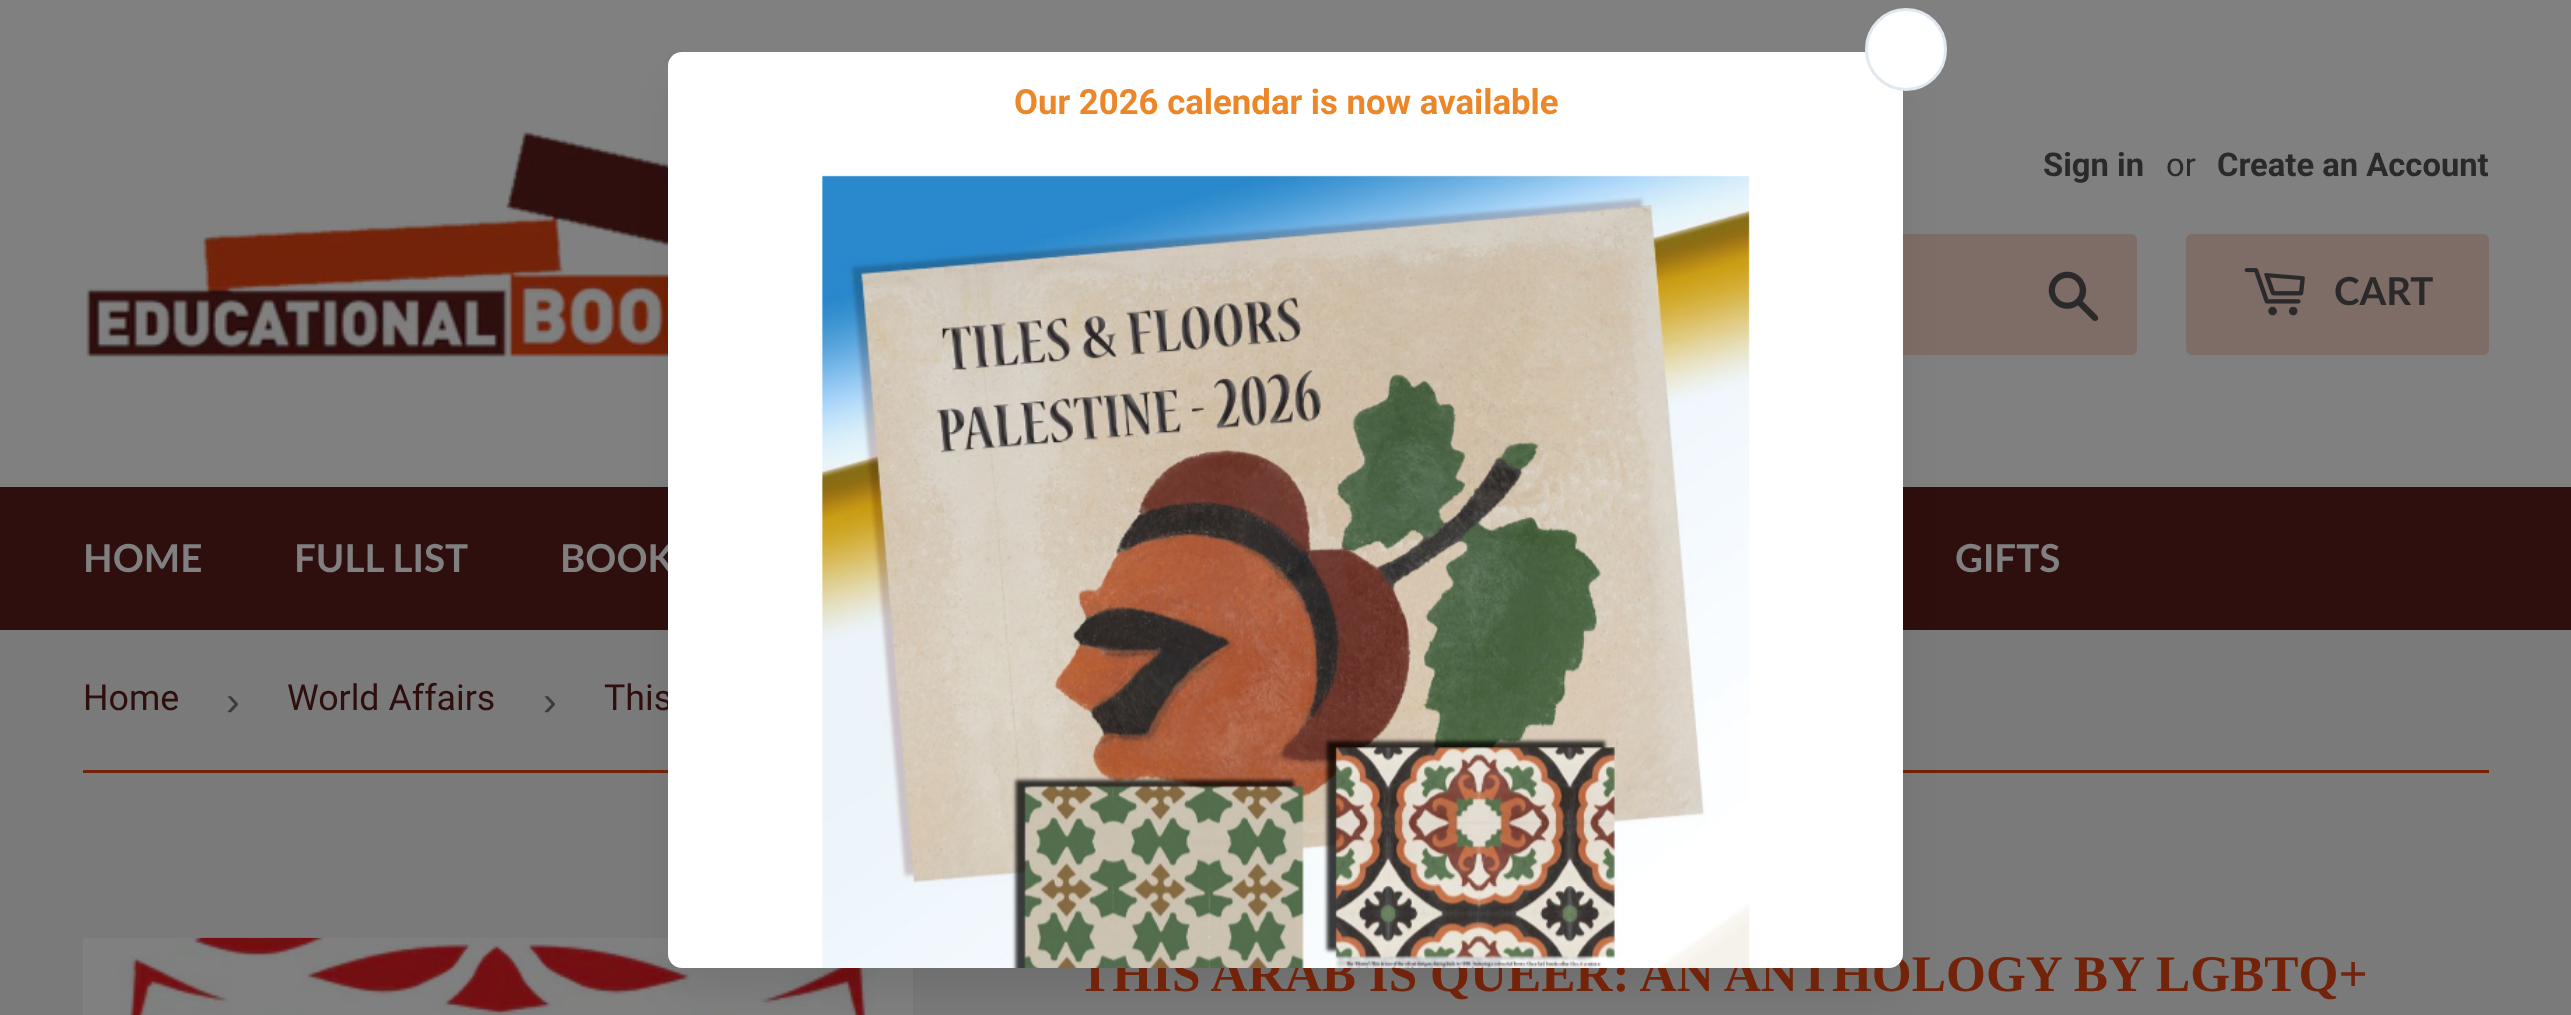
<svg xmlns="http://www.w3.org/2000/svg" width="2571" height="1015">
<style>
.a{font:bold 32.75px Roboto;fill:#2a2a2a}
.b{font:32.75px Roboto;fill:#2a2a2a}
.c{font:bold 38.5px Lato;fill:#2a2a2a}
.d{font:bold 38.5px Lato;fill:#808080}
.e{font:35.75px Roboto;fill:#2e0f0e}
.f{font:41px Liberation Sans;fill:#3b3b3b}
.g{font:bold 51.3px Liberation Serif;fill:#73230a}
.h{font:bold 34.75px Roboto;fill:#eb8629}
</style>
<defs>
<clipPath id="clip1"><path d="M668 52h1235v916H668z"/></clipPath>
</defs>
<rect width="100%" height="100%" fill="#7a7a7a"/>
<path fill="#808080" d="M0 0h2571v487H0z"/>
<image href="2.png" x="86" y="131" width="582" height="226"/>
<rect fill="#7e6c67" x="1414" y="234" width="723" height="121" rx="6"/>
<path fill="#2e0f0e" d="M0 487h2571v143H0z"/>
<path fill="#73230a" d="M83 770h2406v3H83z"/>
<image href="5.png" x="83" y="937" width="830" height="78"/>
<rect fill="#0000001a" filter="blur(20.5px)" x="677" y="88" width="1218" height="899" rx="6"/>
<g clip-path="url(#clip1)">
<rect fill="#0000001f" filter="blur(27.5px)" x="677" y="61" width="1218" height="899" rx="6"/>
</g>
<image href="3.png" x="2048" y="271" width="51" height="50"/>
<rect fill="#7e6c67" x="2186" y="234" width="303" height="121" rx="6"/>
<image href="4.png" x="2244" y="268" width="61" height="48"/>
<text class="a" x="2043" y="176">Sign in</text>
<text class="b" x="2166" y="176">or</text>
<text class="a" x="2217" y="176">Create an Account</text>
<text class="c" x="2334" y="305">CART</text>
<text class="d" x="83" y="572">HOME</text>
<text class="d" x="294" y="572">FULL LIST</text>
<text class="d" x="560" y="572">BOOK</text>
<text class="d" x="1955" y="572">GIFTS</text>
<text class="e" x="83" y="710">Home</text>
<text class="f" x="226" y="715">›</text>
<text class="e" x="287" y="710">World Affairs</text>
<text class="f" x="543" y="715">›</text>
<text class="e" x="604" y="710">This</text>
<text class="g" x="1078" y="991">THIS ARAB IS QUEER: AN ANTHOLOGY BY LGBTQ+</text>
<rect fill="#fff" x="668" y="52" width="1235" height="916" rx="14"/>
<rect fill="#fff" stroke="#e2e8f0" stroke-width="3" x="1866.5" y="9.5" width="79" height="80" rx="39.5"/>
<image href="1.png" x="821" y="175" width="929" height="793"/>
<text class="h" x="1014" y="114">Our 2026 calendar is now available</text>
</svg>
